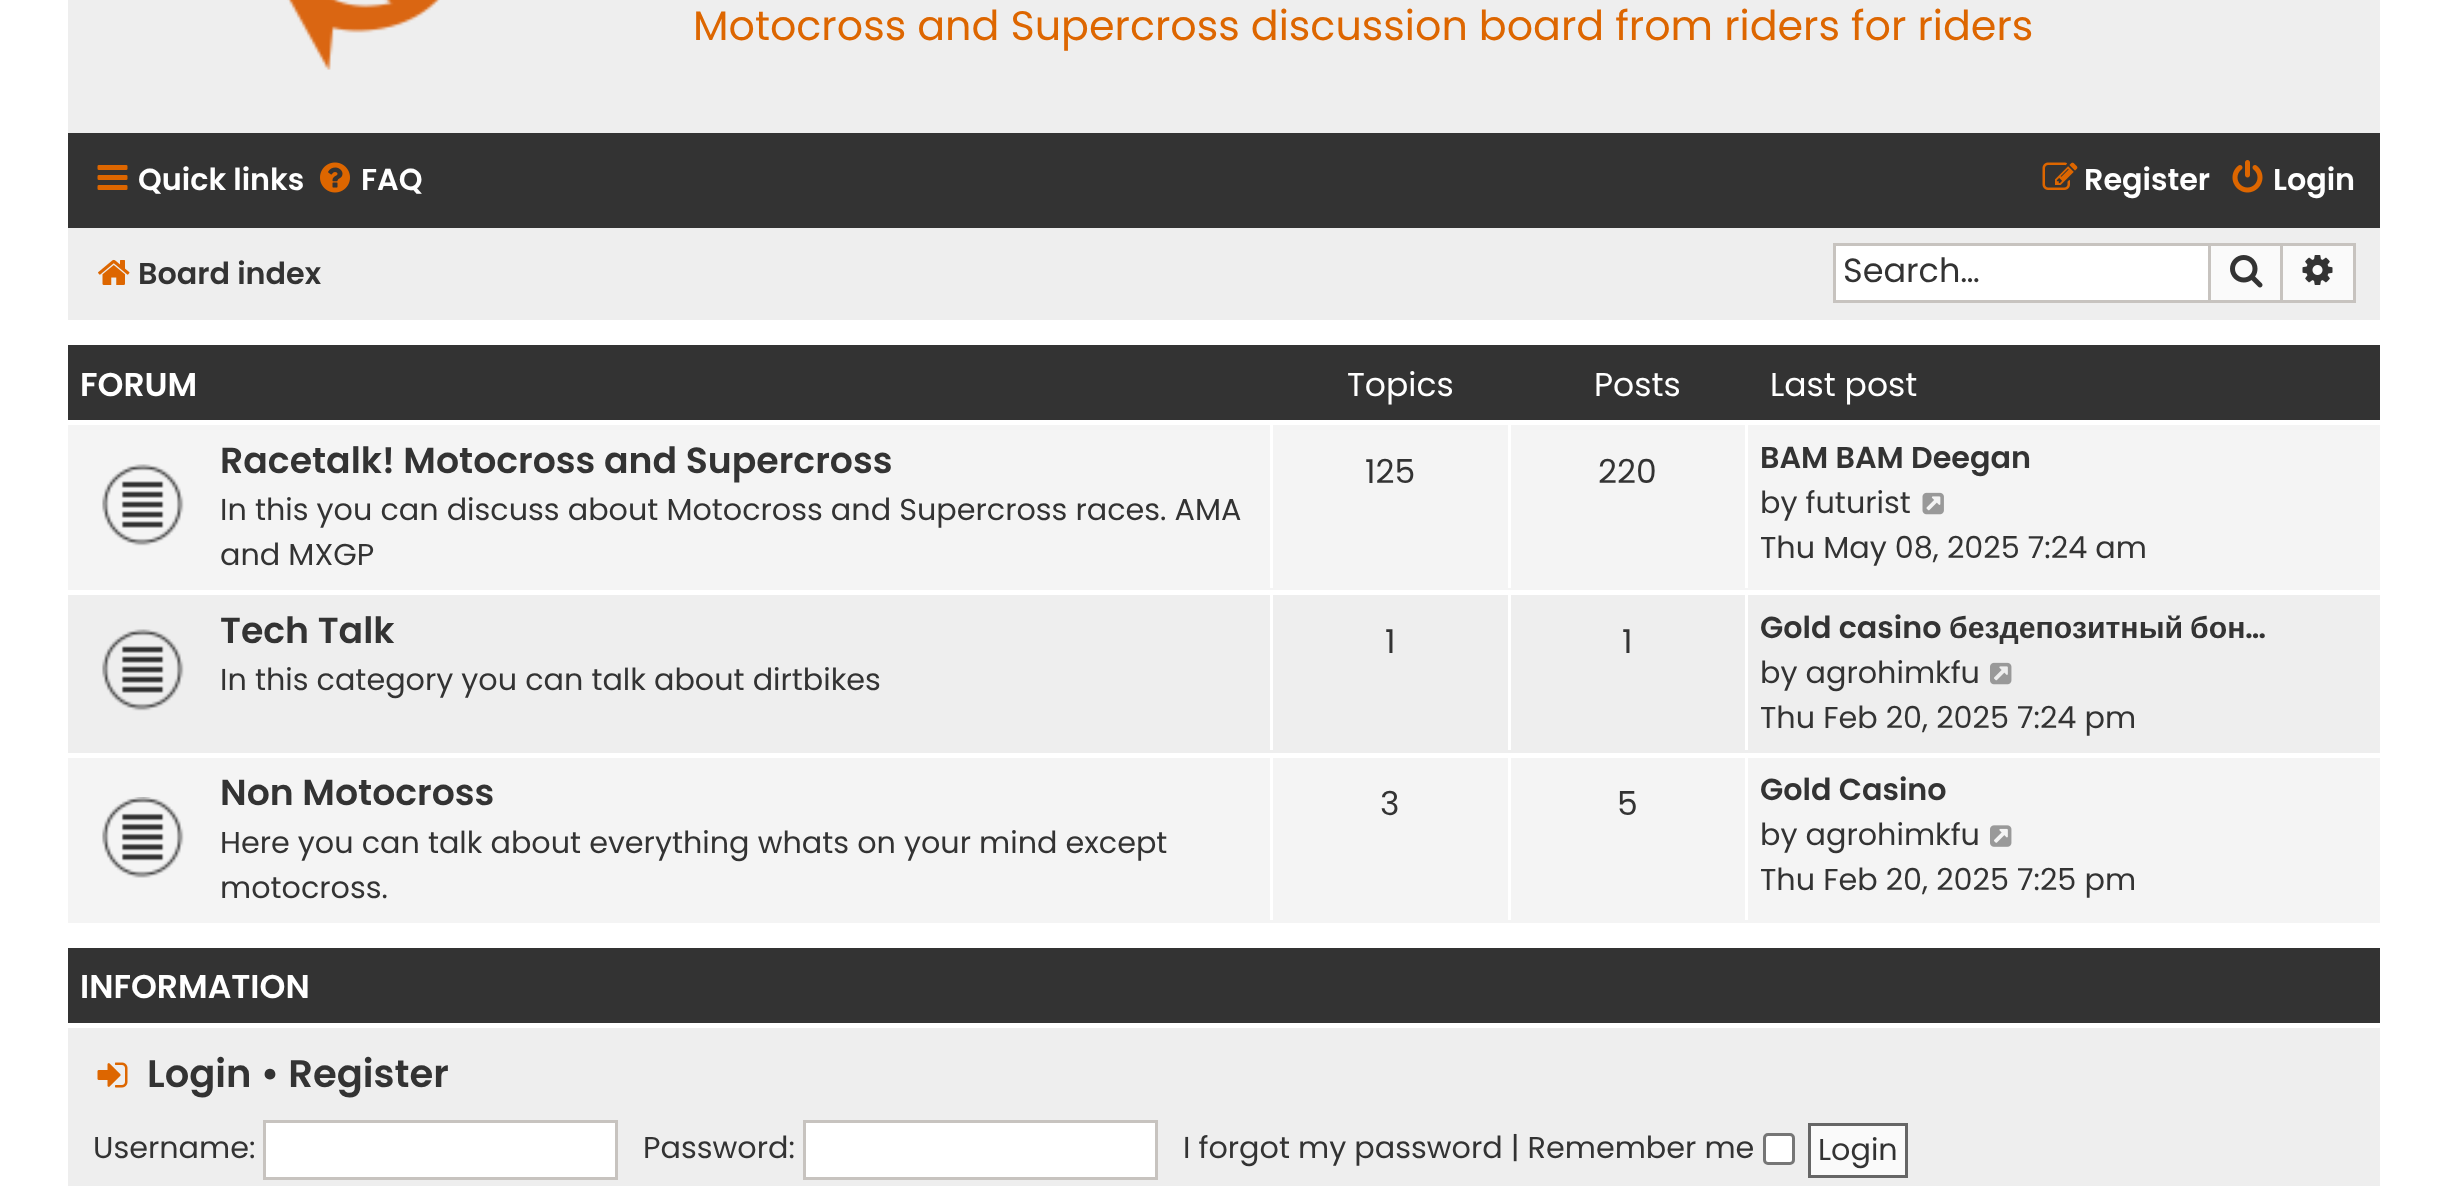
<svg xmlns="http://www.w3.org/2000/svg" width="2446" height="1186">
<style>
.a{font:41.25px Poppins;fill:#d60}
.b{font:600 30.25px Poppins;fill:#fff}
.c{font:600 30.25px Poppins;fill:#333}
.d{font:33.5px Poppins;fill:#333}
.e{font:600 33px Poppins;fill:#fff}
.f{font:33px Poppins;fill:#fff}
.g{font:600 36.25px Poppins;fill:#333}
.h{font:30.25px Poppins;fill:#333}
.i{font:33px Poppins;fill:#333}
.j{font:bold 30.25px Liberation Sans;fill:#333}
.k{font:600 38.5px Poppins;fill:#333}
</style>
<rect width="100%" height="100%" fill="#fff"/>
<path fill="#eee" d="M68 0h2312v133H68z"/>
<image href="1.png" x="287" y="0" width="153" height="70"/>
<path fill="#333" d="M68 133h2312v95H68z"/>
<image href="2.png" x="97" y="165" width="31" height="25"/>
<image href="3.png" x="320" y="162" width="30" height="31"/>
<image href="4.png" x="2042" y="162" width="36" height="28"/>
<image href="5.png" x="2232" y="160" width="31" height="33"/>
<path fill="#eee" d="M68 228h2312v92H68z"/>
<image href="6.png" x="98" y="259" width="32" height="26"/>
<path fill="#fff" d="M1836 246h372v54H1836z"/>
<path fill="#c7c3bf" d="M1833 243h375v3H1833z"/>
<path fill="#c7c3bf" d="M1833 300h375v3H1833z"/>
<path fill="#c7c3bf" d="M1833 243h3v60H1833z"/>
<path fill="#fafafa" stroke="#c7c3bf" stroke-width="3" d="M2209.5 244.5h72v57H2209.5z"/>
<image href="7.png" x="2230" y="255" width="33" height="33"/>
<path fill="#fafafa" d="M2283 246h70v54H2283z"/>
<path fill="#c7c3bf" d="M2283 243h72v3H2283z"/>
<path fill="#c7c3bf" d="M2353 243h3v60H2353z"/>
<path fill="#c7c3bf" d="M2283 300h72v3H2283z"/>
<image href="8.png" x="2302" y="255" width="31" height="30"/>
<path fill="#333" d="M68 345h2312v75H68z"/>
<path fill="#eee" d="M68 595h2312v158H68z"/>
<path fill="#f4f4f4" d="M68 425h2312v165H68z"/>
<image href="9.png" x="102" y="464" width="82" height="82"/>
<path fill="#fff" d="M1270 425h3v163H1270z"/>
<path fill="#fff" d="M1508 425h3v163H1508z"/>
<path fill="#fff" d="M1745 425h3v163H1745z"/>
<image href="10.png" x="1922" y="492" width="22" height="23"/>
<image href="11.png" x="102" y="629" width="82" height="82"/>
<path fill="#fff" d="M1270 595h3v155H1270z"/>
<path fill="#fff" d="M1508 595h3v155H1508z"/>
<path fill="#fff" d="M1745 595h3v155H1745z"/>
<image href="12.png" x="1990" y="662" width="22" height="23"/>
<path fill="#f4f4f4" d="M68 758h2312v165H68z"/>
<image href="13.png" x="102" y="797" width="82" height="81"/>
<path fill="#fff" d="M1270 758h3v162H1270z"/>
<path fill="#fff" d="M1508 758h3v162H1508z"/>
<path fill="#fff" d="M1745 758h3v162H1745z"/>
<image href="14.png" x="1990" y="825" width="22" height="22"/>
<path fill="#333" d="M68 948h2312v75H68z"/>
<path fill="#eee" d="M68 1028h2312v158H68z"/>
<image href="15.png" x="97" y="1062" width="31" height="26"/>
<path fill="#fff" stroke="#c7c3bf" stroke-width="3" d="M264.5 1121.5h352v57H264.5z"/>
<path fill="#fff" stroke="#c7c3bf" stroke-width="3" d="M804.5 1121.5h352v57H804.5z"/>
<rect fill="#fff" stroke="#767676" stroke-width="3" x="1764.5" y="1134.5" width="29" height="29" rx="3.5"/>
<path fill="#fafafa" stroke="#666" stroke-width="3" d="M1809.5 1124.5h97v52H1809.5z"/>
<text class="a" x="693" y="40">Motocross and Supercross discussion board from riders for riders</text>
<text class="b" x="138" y="190">Quick links</text>
<text class="b" x="361" y="190">FAQ</text>
<text class="b" x="2084" y="190">Register</text>
<text class="b" x="2273" y="190">Login</text>
<text class="c" x="138" y="284">Board index</text>
<text class="d" x="1843" y="282">Search…</text>
<text class="e" x="80" y="396">FORUM</text>
<text class="f" x="1347" y="396">Topics</text>
<text class="f" x="1594" y="396">Posts</text>
<text class="f" x="1770" y="396">Last post</text>
<text class="g" x="220" y="473">Racetalk! Motocross and Supercross</text>
<text class="h" x="220" y="520">In this you can discuss about Motocross and Supercross races. AMA</text>
<text class="h" x="220" y="565">and MXGP</text>
<text class="i" x="1365" y="483">125</text>
<text class="i" x="1598" y="483">220</text>
<text class="c" x="1760" y="468">BAM BAM Deegan</text>
<text class="h" x="1760" y="513">by futurist</text>
<text class="h" x="1760" y="558">Thu May 08, 2025 7:24 am</text>
<text class="g" x="220" y="643">Tech Talk</text>
<text class="h" x="220" y="690">In this category you can talk about dirtbikes</text>
<text class="i" x="1385" y="653">1</text>
<text class="i" x="1622" y="653">1</text>
<text class="c" x="1760" y="638">Gold casino</text>
<text class="j" x="1949" y="638">бездепозитный</text>
<text class="j" x="2190" y="638">бон</text>
<text class="c" x="2245" y="638">…</text>
<text class="h" x="1760" y="683">by agrohimkfu</text>
<text class="h" x="1760" y="728">Thu Feb 20, 2025 7:24 pm</text>
<text class="g" x="220" y="805">Non Motocross</text>
<text class="h" x="220" y="853">Here you can talk about everything whats on your mind except</text>
<text class="h" x="220" y="898">motocross.</text>
<text class="i" x="1380" y="815">3</text>
<text class="i" x="1617" y="815">5</text>
<text class="c" x="1760" y="800">Gold Casino</text>
<text class="h" x="1760" y="845">by agrohimkfu</text>
<text class="h" x="1760" y="890">Thu Feb 20, 2025 7:25 pm</text>
<text class="e" x="80" y="998">INFORMATION</text>
<text class="k" x="147" y="1087">Login • Register</text>
<text class="h" x="93" y="1158">Username:</text>
<text class="h" x="643" y="1158">Password:</text>
<text class="h" x="1183" y="1158">I forgot my password | Remember me</text>
<text class="h" x="1818" y="1160">Login</text>
</svg>
